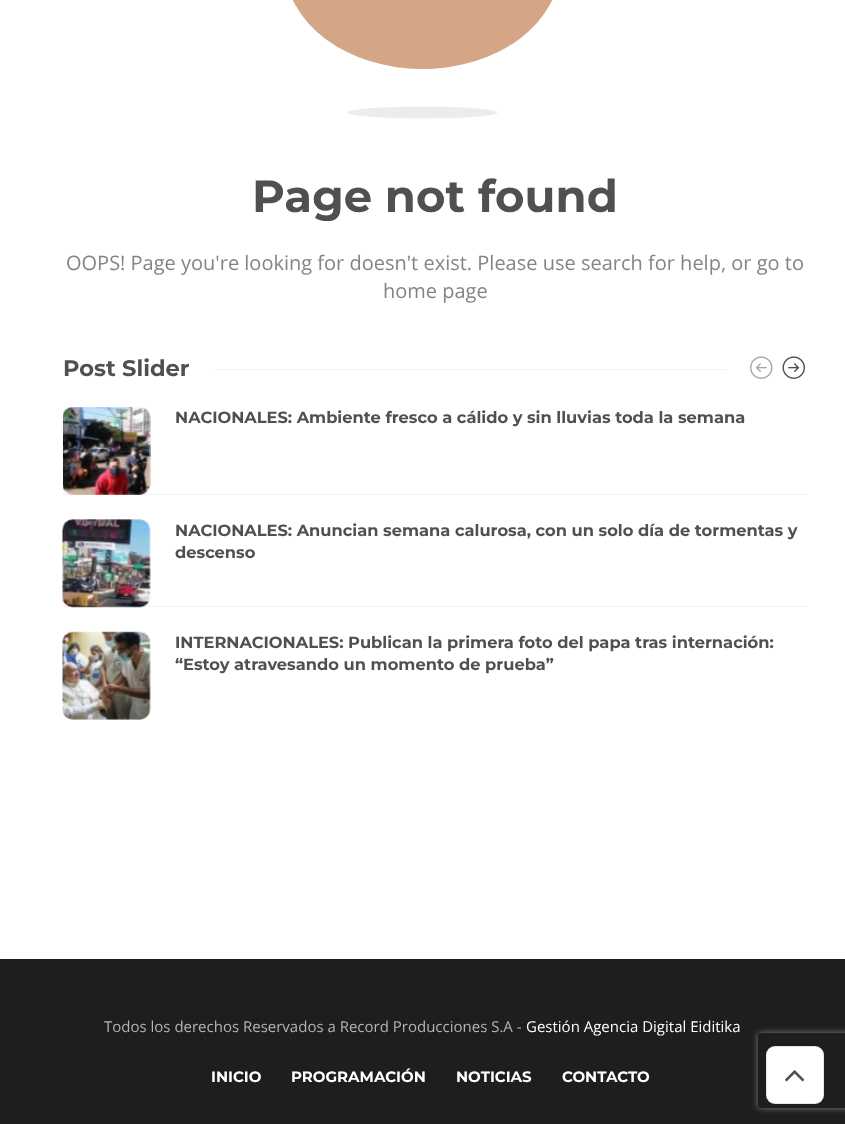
<svg xmlns="http://www.w3.org/2000/svg" width="845" height="1124">
<style>
.a{font:bold 45px Montserrat;fill:#505050}
.b{font:20px Open Sans;fill:#848484}
.c{font:bold 22.5px Montserrat;fill:#505050}
.d{font:bold 16.25px Montserrat;fill:#505050}
.e{font:15px Open Sans;fill:#b4b4b4}
.f{font:15px Open Sans;fill:#fff}
.g{font:bold 15px Montserrat;fill:#fff}
</style>
<defs>
<clipPath id="clip1"><path d="M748 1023h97v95h-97zm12.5 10h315c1.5 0 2.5 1 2.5 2.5v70c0 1.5-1 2.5-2.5 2.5h-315c-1.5 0-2.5-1-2.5-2.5v-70c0-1.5 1-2.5 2.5-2.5z" clip-rule="evenodd"/></clipPath>
</defs>
<rect width="100%" height="100%" fill="#fff"/>
<rect fill="#ccc" x="285" y="-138" width="275" height="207" rx="137.5"/>
<rect fill="#d79c74cc" x="285" y="-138" width="275" height="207" rx="137.5"/>
<ellipse fill="#ececec" cx="422.5" cy="112.5" rx="75" ry="6"/>
<path fill="#f0f0f0" d="M214 369h512v1H214z"/>
<image href="1.png" x="750" y="356" width="23" height="23"/>
<image href="2.png" x="782" y="356" width="23" height="23"/>
<path fill="#f0f0f0" d="M63 494h745v1H63z"/>
<image href="3.png" x="63" y="407" width="88" height="88"/>
<path fill="#f0f0f0" d="M63 606h745v1H63z"/>
<image href="4.png" x="62" y="519" width="89" height="89"/>
<image href="5.png" x="62" y="631" width="89" height="89"/>
<path fill="#1e1e1e" d="M0 959h845v165H0z"/>
<g clip-path="url(#clip1)">
<rect fill="#808080" filter="blur(3px)" x="758" y="1033" width="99" height="75" rx="2.5"/>
</g>
<rect fill="#fff" x="766" y="1046" width="58" height="58" rx="9"/>
<rect fill="none" stroke="#0000001a" x="766.5" y="1046.5" width="57" height="57" rx="8.5"/>
<image href="6.png" x="785" y="1070" width="20" height="12"/>
<text class="a" x="252" y="212">Page not found</text>
<text class="b" x="66" y="270">OOPS! Page you're looking for doesn't exist. Please use search for help, or go to</text>
<text class="b" x="383" y="298">home page</text>
<text class="c" x="63" y="376">Post Slider</text>
<text class="d" x="175" y="423">NACIONALES: Ambiente fresco a cálido y sin lluvias toda la semana</text>
<text class="d" x="175" y="536">NACIONALES: Anuncian semana calurosa, con un solo día de tormentas y</text>
<text class="d" x="175" y="558">descenso</text>
<text class="d" x="175" y="648">INTERNACIONALES: Publican la primera foto del papa tras internación:</text>
<text class="d" x="175" y="670">“Estoy atravesando un momento de prueba”</text>
<text class="e" x="104" y="1032">Todos los derechos Reservados a Record Producciones S.A -</text>
<text class="f" x="526" y="1032">Gestión Agencia Digital Eiditika</text>
<text class="g" x="211" y="1082">INICIO</text>
<text class="g" x="291" y="1082">PROGRAMACIÓN</text>
<text class="g" x="456" y="1082">NOTICIAS</text>
<text class="g" x="562" y="1082">CONTACTO</text>
</svg>
